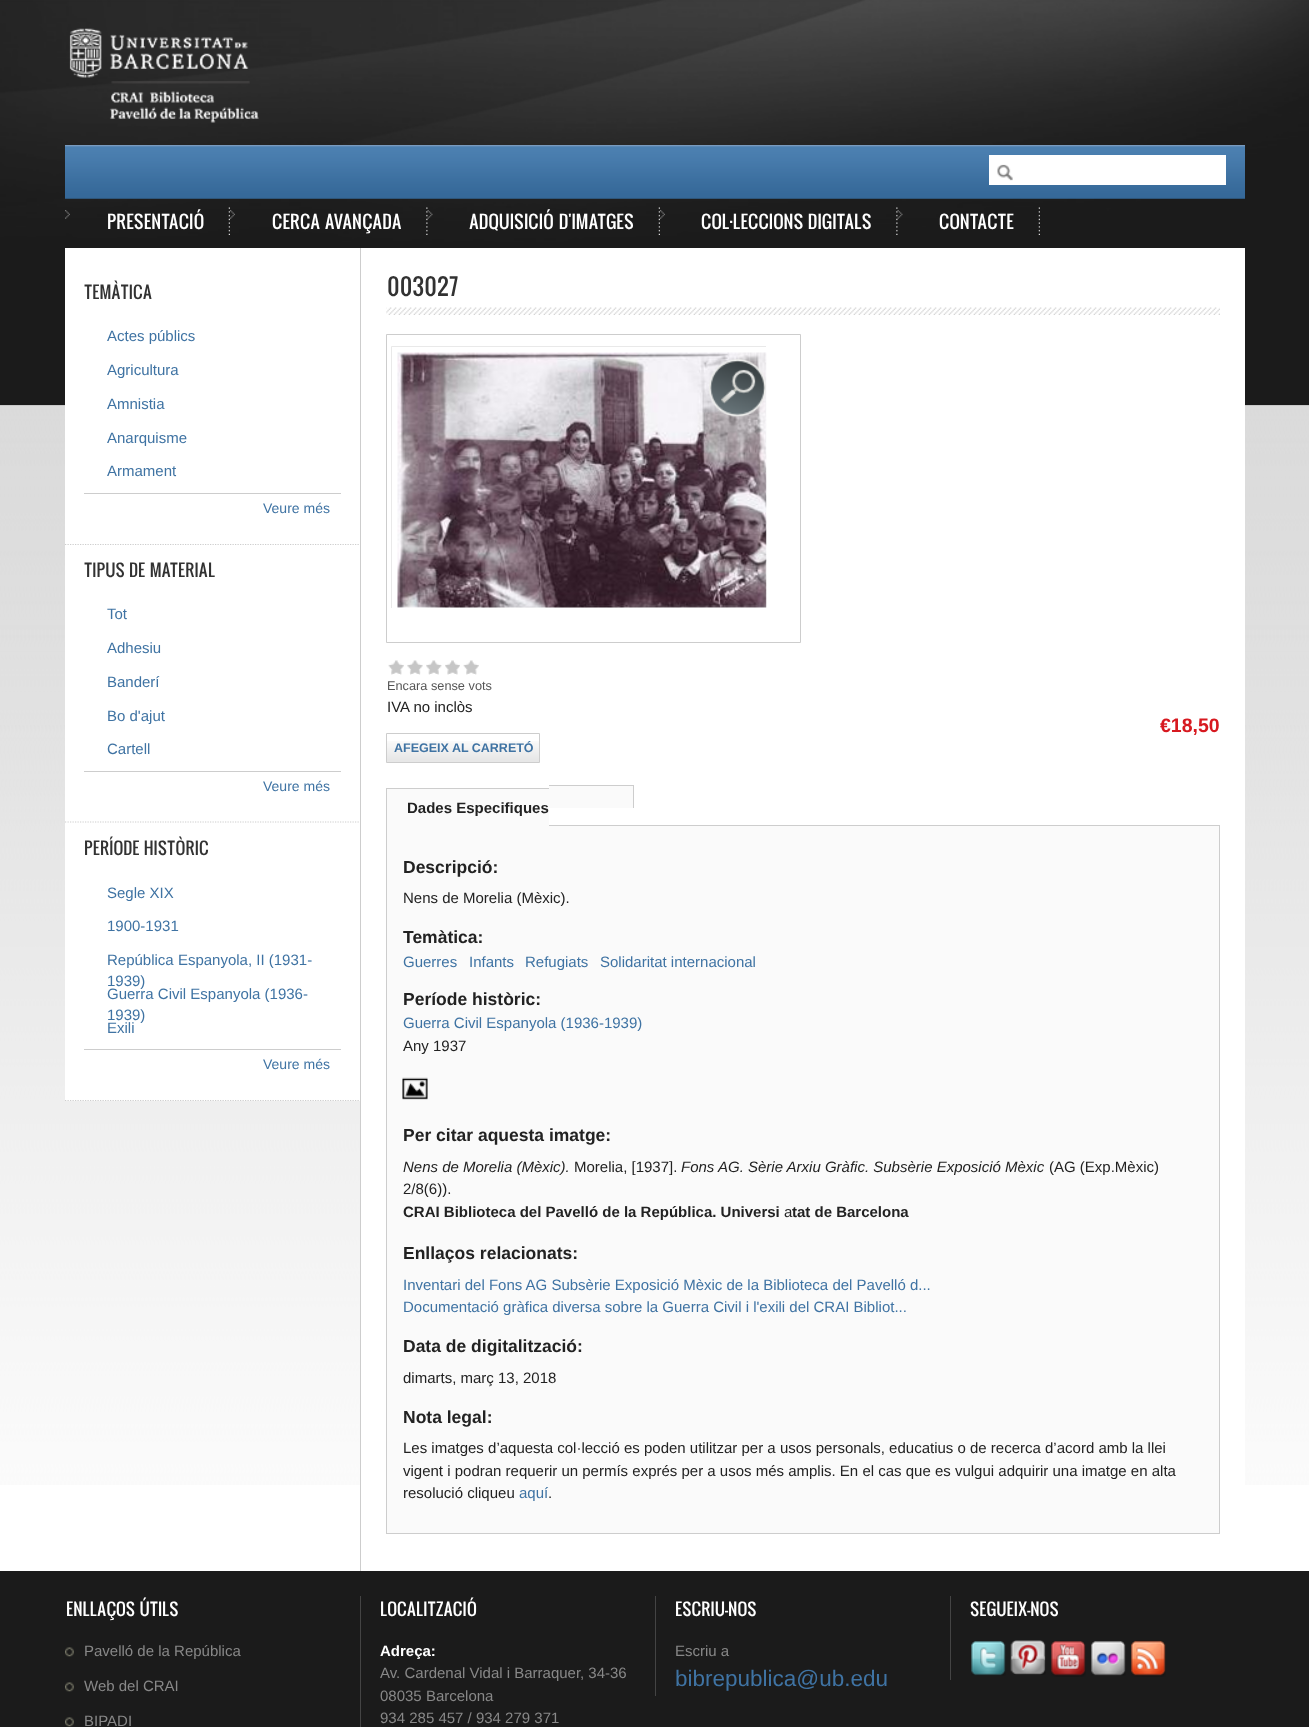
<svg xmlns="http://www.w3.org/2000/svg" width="1309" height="1727">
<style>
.a{font:17.5px Oswald;fill:#fff}
.b{font:16.5px Oswald;fill:#323232}
.c{font:15px Liberation Sans;fill:#3f73a3}
.d{font:14px Liberation Sans;fill:#3f73a3}
.e{font:22.5px Oswald;fill:#323232}
.f{font:12.75px Liberation Sans;fill:#555}
.g{font:15px Liberation Sans;fill:#222}
.h{font:bold 19.5px Liberation Sans;fill:#d71920}
.i{font:bold 12.5px Liberation Sans;fill:#3f73a3}
.j{font:bold 15px Liberation Sans;fill:#222}
.k{font:bold 17.5px Liberation Sans;fill:#222}
.l{font:italic 15px Liberation Sans;fill:#222}
.m{font:16.5px Oswald;fill:#fff}
.n{font:15px Liberation Sans;fill:#888}
.o{font:bold 15px Liberation Sans;fill:#fff}
.p{font:22.5px Liberation Sans;fill:#3f73a3}
</style>
<defs>
<clipPath id="clip1"><path d="M391 346h375v262H391z"/></clipPath>
</defs>
<rect width="100%" height="100%" fill="#fff"/>
<image href="1.png" x="0" y="0" width="1309" height="1485"/>
<image href="2.png" x="0" y="0" width="1309" height="405"/>
<image href="3.png" x="69" y="28" width="190" height="95"/>
<image href="4.png" x="65" y="145" width="1180" height="54"/>
<path fill="#fff" d="M989 155h237v30H989z"/>
<image href="5.png" x="997" y="164" width="16" height="17"/>
<image href="6.png" x="228" y="207" width="2" height="28"/>
<image href="7.png" x="65" y="210" width="5" height="9"/>
<image href="8.png" x="426" y="207" width="2" height="28"/>
<image href="9.png" x="230" y="210" width="5" height="9"/>
<image href="10.png" x="658" y="207" width="2" height="28"/>
<image href="11.png" x="427" y="210" width="6" height="9"/>
<image href="12.png" x="896" y="207" width="2" height="28"/>
<image href="13.png" x="660" y="210" width="5" height="9"/>
<image href="14.png" x="1038" y="207" width="2" height="28"/>
<image href="15.png" x="897" y="210" width="6" height="9"/>
<path fill="#fff" d="M65 248h295v853H65z"/>
<path fill="none" stroke="#cdcdcd" stroke-width="1.2" stroke-dasharray="1.25 1.25" d="M65 544.5h295"/>
<path fill="#cdcdcd" d="M84 493h257v1H84z"/>
<path fill="none" stroke="#cdcdcd" stroke-width="1.2" stroke-dasharray="1.25 1.25" d="M65 822h295"/>
<path fill="#cdcdcd" d="M84 771h257v1H84z"/>
<path fill="none" stroke="#cdcdcd" stroke-width="1.2" stroke-dasharray="1.25 1.25" d="M65 1100.5h295"/>
<path fill="#cdcdcd" d="M84 1049h257v1H84z"/>
<path fill="#fff" d="M361 248h884v1237H361z"/>
<path fill="#cdcdcd" d="M360 248h1v1323H360z"/>
<image href="16.png" x="386" y="307" width="834" height="8"/>
<path fill="none" stroke="#cdcdcd" d="M386.5 334.5h414v308H386.5z"/>
<g clip-path="url(#clip1)">
<path fill="none" stroke="#e9e9e9" d="M391.5 346.5h387v273H391.5z"/>
</g>
<image href="17.png" x="397" y="352" width="370" height="256"/>
<image href="18.png" x="709" y="359" width="57" height="58"/>
<image href="19.png" x="388" y="660" width="16" height="15"/>
<image href="20.png" x="388" y="660" width="16" height="15"/>
<image href="21.png" x="407" y="660" width="16" height="15"/>
<image href="22.png" x="407" y="660" width="16" height="15"/>
<image href="23.png" x="426" y="660" width="16" height="15"/>
<image href="24.png" x="426" y="660" width="16" height="15"/>
<image href="25.png" x="445" y="660" width="15" height="15"/>
<image href="26.png" x="445" y="660" width="15" height="15"/>
<image href="19.png" x="463" y="660" width="16" height="15"/>
<image href="20.png" x="463" y="660" width="16" height="15"/>
<image href="27.png" x="387" y="741" width="152" height="21"/>
<path fill="none" stroke="#cdcdcd" d="M386.5 733.5h153v29H386.5z"/>
<path fill="#cdcdcd" d="M549 825h671v1H549z"/>
<path fill="#fafafa" d="M387 789h162v37H387z"/>
<path fill="#cdcdcd" d="M386 788h163v1H386z"/>
<path fill="#cdcdcd" d="M386 788h1v38H386z"/>
<path fill="#fafafa" d="M549 786h84v22H549z"/>
<path fill="#cdcdcd" d="M549 785h85v1H549z"/>
<path fill="#cdcdcd" d="M633 785h1v23H633z"/>
<path fill="#fafafa" d="M387 826h832v707H387z"/>
<path fill="#cdcdcd" d="M1219 826h1v708H1219z"/>
<path fill="#cdcdcd" d="M386 1533h834v1H386z"/>
<path fill="#cdcdcd" d="M386 826h1v708H386z"/>
<image href="28.png" x="402" y="1077" width="26" height="23"/>
<path fill="#1b1b1b" d="M0 1571h1309v156H0z"/>
<image href="29.png" x="65" y="1647" width="9" height="10"/>
<image href="29.png" x="65" y="1682" width="9" height="10"/>
<image href="29.png" x="65" y="1717" width="9" height="10"/>
<path fill="#444" d="M360 1596h1v131H360z"/>
<path fill="#444" d="M655 1596h1v100H655z"/>
<path fill="#444" d="M950 1596h1v84H950z"/>
<image href="30.png" x="971" y="1641" width="35" height="35"/>
<image href="31.png" x="1010" y="1640" width="36" height="35"/>
<image href="32.png" x="1051" y="1641" width="35" height="36"/>
<image href="33.png" x="1091" y="1641" width="35" height="35"/>
<image href="34.png" x="1131" y="1640" width="35" height="37"/>
<text class="a" x="107" y="229">PRESENTACIÓ</text>
<text class="a" x="272" y="229">CERCA AVANÇADA</text>
<text class="a" x="469" y="229">ADQUISICIÓ D'IMATGES</text>
<text class="a" x="701" y="229">COL·LECCIONS DIGITALS</text>
<text class="a" x="939" y="229">CONTACTE</text>
<text class="b" x="84" y="299">TEMÀTICA</text>
<text class="c" x="107" y="341">Actes públics</text>
<text class="c" x="107" y="375">Agricultura</text>
<text class="c" x="107" y="409">Amnistia</text>
<text class="c" x="107" y="443">Anarquisme</text>
<text class="c" x="107" y="476">Armament</text>
<text class="d" x="263" y="513">Veure més</text>
<text class="b" x="84" y="577">TIPUS DE MATERIAL</text>
<text class="c" x="107" y="619">Tot</text>
<text class="c" x="107" y="653">Adhesiu</text>
<text class="c" x="107" y="687">Banderí</text>
<text class="c" x="107" y="721">Bo d'ajut</text>
<text class="c" x="107" y="754">Cartell</text>
<text class="d" x="263" y="791">Veure més</text>
<text class="b" x="84" y="855">PERÍODE HISTÒRIC</text>
<text class="c" x="107" y="898">Segle XIX</text>
<text class="c" x="107" y="931">1900-1931</text>
<text class="c" x="107" y="965">República Espanyola, II (1931-</text>
<text class="c" x="107" y="986">1939)</text>
<text class="c" x="107" y="999">Guerra Civil Espanyola (1936-</text>
<text class="c" x="107" y="1020">1939)</text>
<text class="c" x="107" y="1033">Exili</text>
<text class="d" x="263" y="1069">Veure més</text>
<text class="e" x="387" y="296">003027</text>
<text class="f" x="387" y="690">Encara sense vots</text>
<text class="g" x="387" y="712">IVA no inclòs</text>
<text class="h" x="1160" y="732">€18,50</text>
<text class="i" x="394" y="752">AFEGEIX AL CARRETÓ</text>
<text class="j" x="407" y="813">Dades Especifiques</text>
<text class="k" x="403" y="873">Descripció:</text>
<text class="g" x="403" y="903">Nens de Morelia (Mèxic).</text>
<text class="k" x="403" y="943">Temàtica:</text>
<text class="c" x="403" y="967">Guerres</text>
<text class="c" x="469" y="967">Infants</text>
<text class="c" x="525" y="967">Refugiats</text>
<text class="c" x="600" y="967">Solidaritat internacional</text>
<text class="k" x="403" y="1005">Període històric:</text>
<text class="c" x="403" y="1028">Guerra Civil Espanyola (1936-1939)</text>
<text class="g" x="403" y="1051">Any 1937</text>
<text class="k" x="403" y="1141">Per citar aquesta imatge:</text>
<text class="l" x="403" y="1172">Nens de Morelia (Mèxic).</text>
<text class="g" x="574" y="1172">Morelia, [1937].</text>
<text class="l" x="681" y="1172">Fons AG. Sèrie Arxiu Gràfic. Subsèrie Exposició Mèxic</text>
<text class="g" x="1049" y="1172">(AG (Exp.Mèxic)</text>
<text class="g" x="403" y="1194">2/8(6)).</text>
<text class="j" x="403" y="1217">CRAI Biblioteca del Pavelló de la República. Universi</text>
<text class="g" x="784" y="1217">a</text>
<text class="j" x="792" y="1217">tat de Barcelona</text>
<text class="k" x="403" y="1259">Enllaços relacionats:</text>
<text class="c" x="403" y="1290">Inventari del Fons AG Subsèrie Exposició Mèxic de la Biblioteca del Pavelló d...</text>
<text class="c" x="403" y="1312">Documentació gràfica diversa sobre la Guerra Civil i l'exili del CRAI Bibliot...</text>
<text class="k" x="403" y="1352">Data de digitalització:</text>
<text class="g" x="403" y="1383">dimarts, març 13, 2018</text>
<text class="k" x="403" y="1423">Nota legal:</text>
<text class="g" x="403" y="1453">Les imatges d’aquesta col·lecció es poden utilitzar per a usos personals, educatius o de recerca d’acord amb la llei</text>
<text class="g" x="403" y="1476">vigent i podran requerir un permís exprés per a usos més amplis. En el cas que es vulgui adquirir una imatge en alta</text>
<text class="g" x="403" y="1498">resolució cliqueu</text>
<text class="c" x="519" y="1498">aquí</text>
<text class="g" x="548" y="1498">.</text>
<text class="m" x="66" y="1616">ENLLAÇOS ÚTILS</text>
<text class="n" x="84" y="1656">Pavelló de la República</text>
<text class="n" x="84" y="1691">Web del CRAI</text>
<text class="n" x="84" y="1726">BIPADI</text>
<text class="m" x="380" y="1616">LOCALITZACIÓ</text>
<text class="o" x="380" y="1656">Adreça:</text>
<text class="n" x="380" y="1678">Av. Cardenal Vidal i Barraquer</text>
<text class="n" x="580" y="1678">, 34-36</text>
<text class="n" x="380" y="1701">08035 Barcelona</text>
<text class="n" x="380" y="1723">934 285 457 / 934 279 371</text>
<text class="m" x="675" y="1616">ESCRIU-NOS</text>
<text class="n" x="675" y="1656">Escriu a</text>
<text class="p" x="675" y="1686">bibrepublica@ub.edu</text>
<text class="m" x="970" y="1616">SEGUEIX-NOS</text>
</svg>
